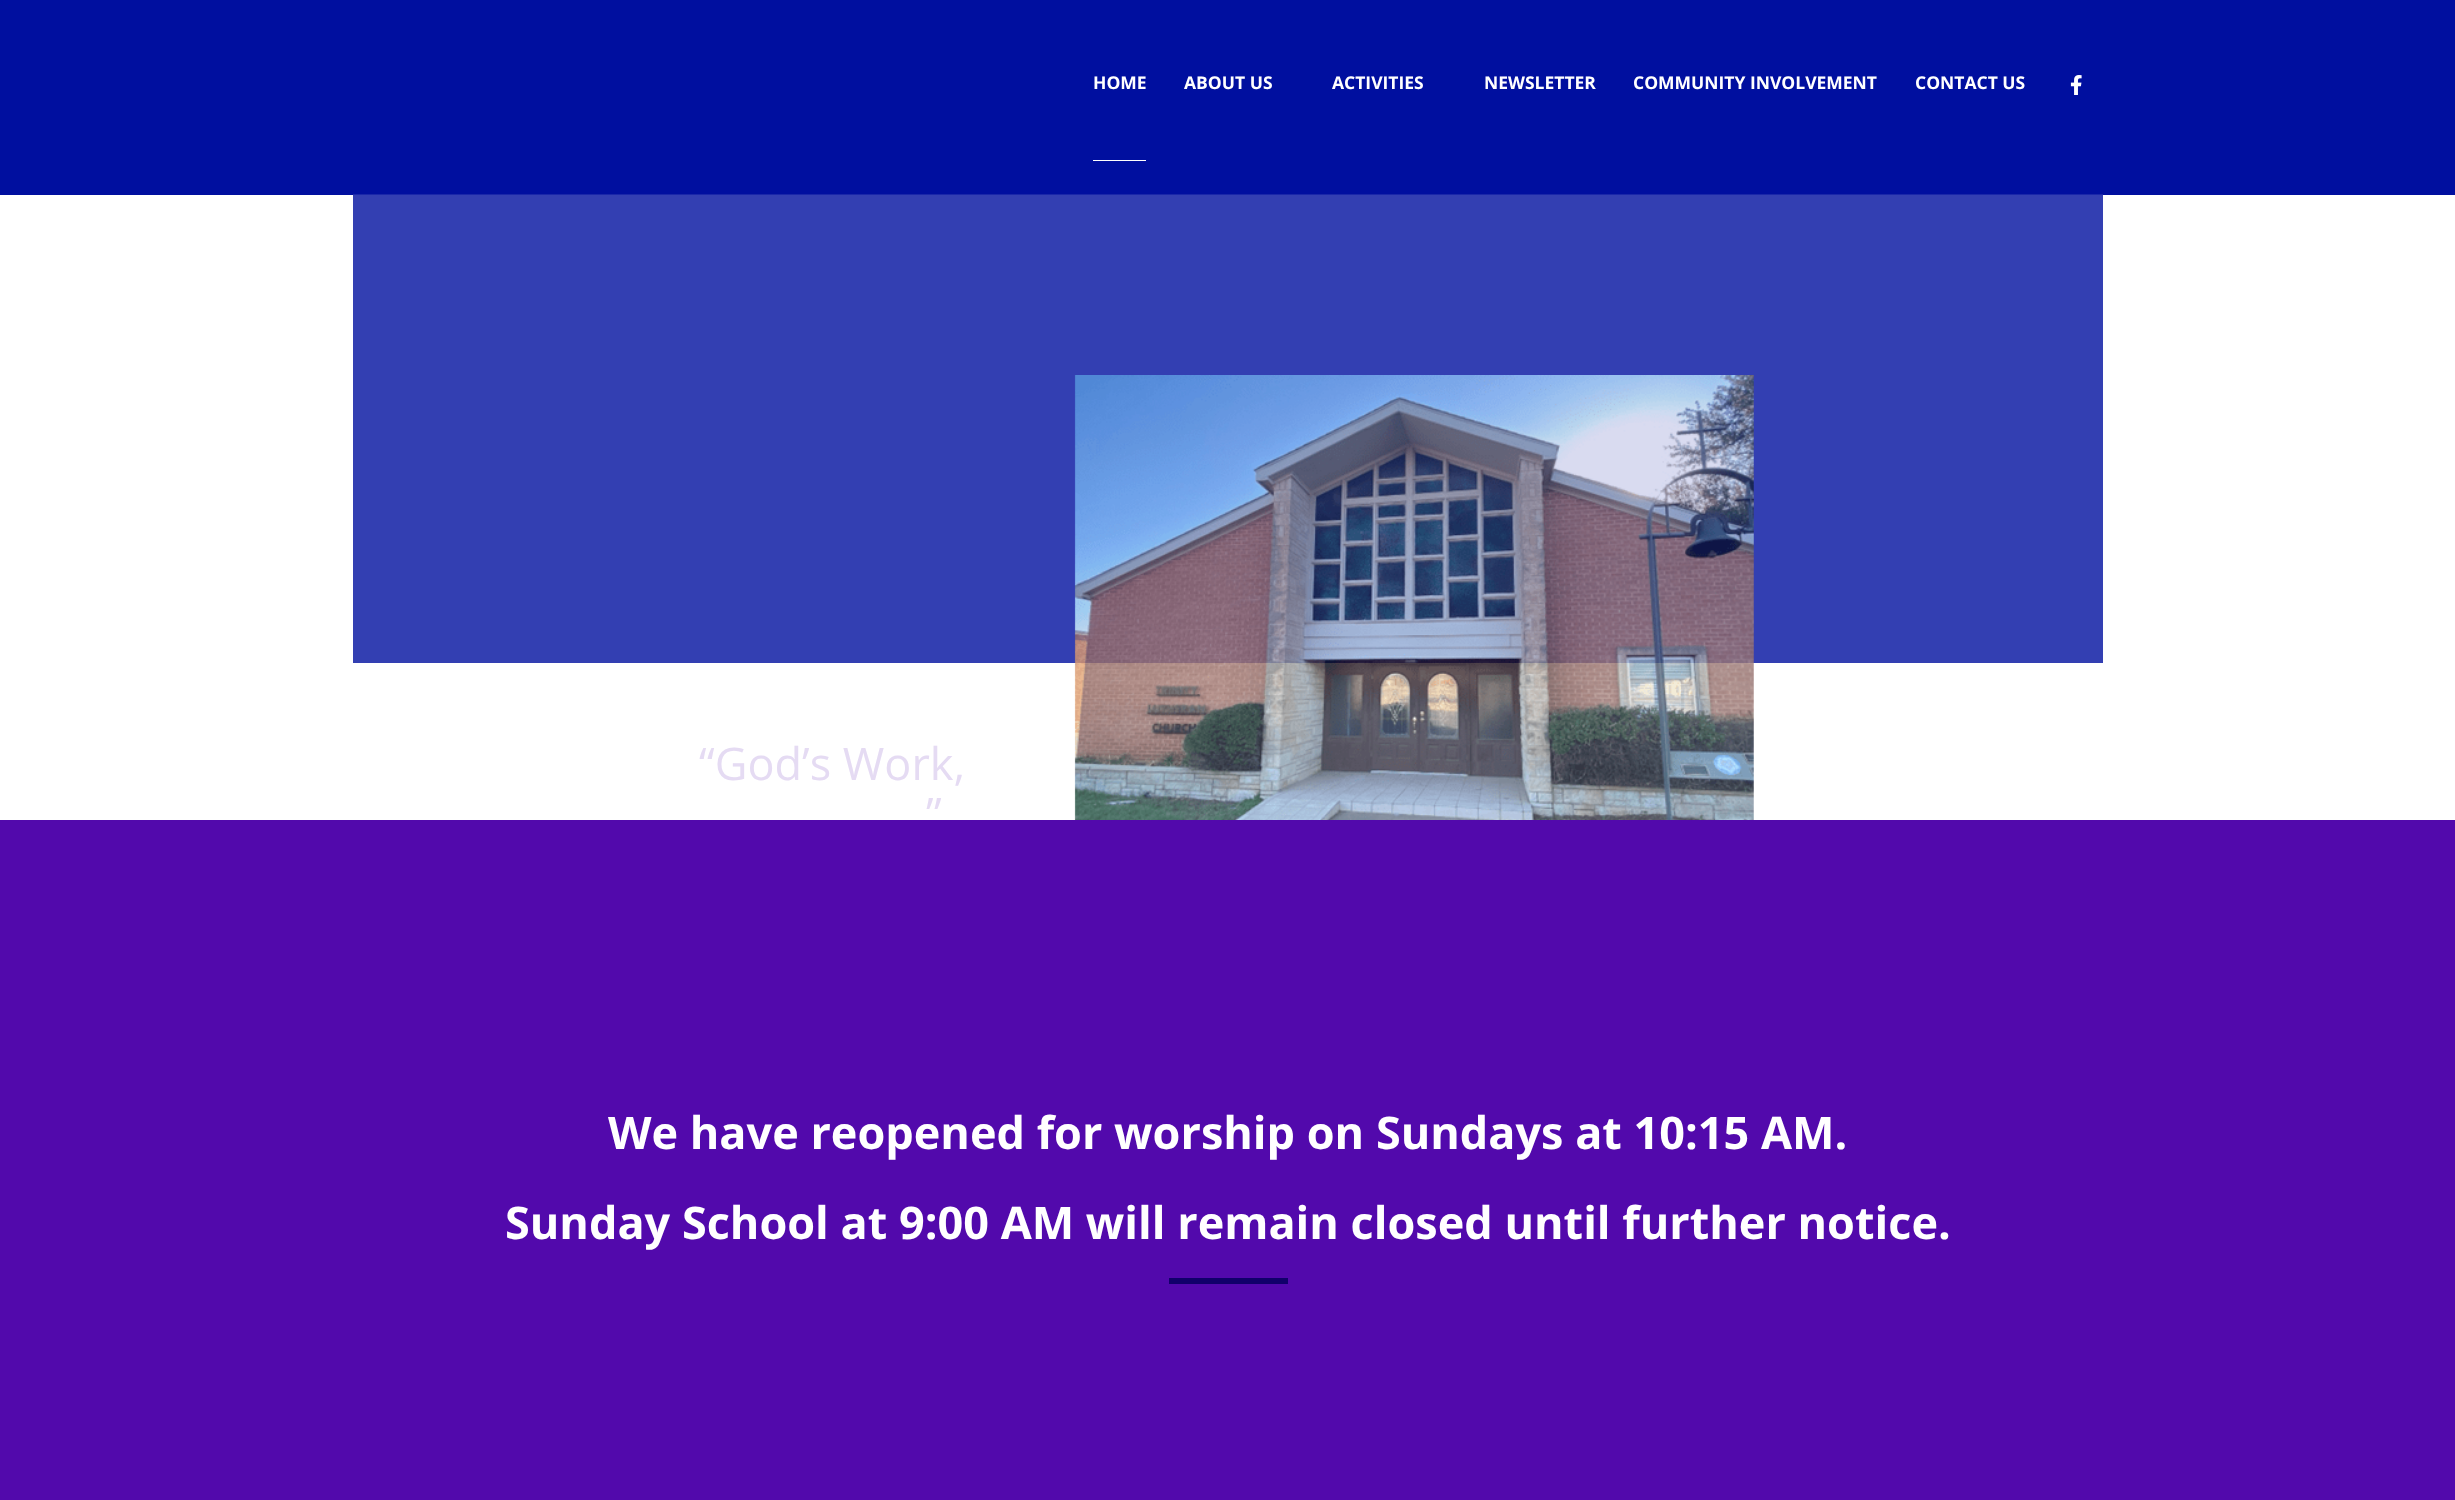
<svg xmlns="http://www.w3.org/2000/svg" width="2455" height="1500">
<style>
.a{font:bold 17.5px Open Sans;fill:#fff}
.b{font:45px Open Sans;fill:#e5dbf3}
.c{font:bold 45px Open Sans;fill:#fff}
</style>
<rect width="100%" height="100%" fill="#fff"/>
<path fill="#000f9f" d="M0 0h2455v195H0z"/>
<path fill="#1a27a9" d="M353 194h1750v1H353z"/>
<path fill="#fff" d="M1093 160h53v1H1093z"/>
<image href="1.png" x="2070" y="75" width="12" height="20"/>
<path fill="#333fb2" d="M353 195h1750v468H353z"/>
<image href="2.png" x="1074" y="375" width="680" height="445"/>
<path fill="#5209ac" d="M0 820h2455v680H0z"/>
<path fill="#11006b" d="M1169 1278h119v6H1169z"/>
<text class="a" x="1093" y="89">HOME</text>
<text class="a" x="1184" y="89">ABOUT US</text>
<text class="a" x="1332" y="89">ACTIVITIES</text>
<text class="a" x="1484" y="89">NEWSLETTER</text>
<text class="a" x="1633" y="89">COMMUNITY INVOLVEMENT</text>
<text class="a" x="1915" y="89">CONTACT US</text>
<text class="b" x="699" y="780">“God’s Work,</text>
<text class="b" x="926" y="830">”</text>
<text class="c" x="608" y="1149">We have reopened for worship on Sundays at 10:15 AM.</text>
<text class="c" x="505" y="1239">Sunday School at 9:00 AM will remain closed until further notice.</text>
</svg>
